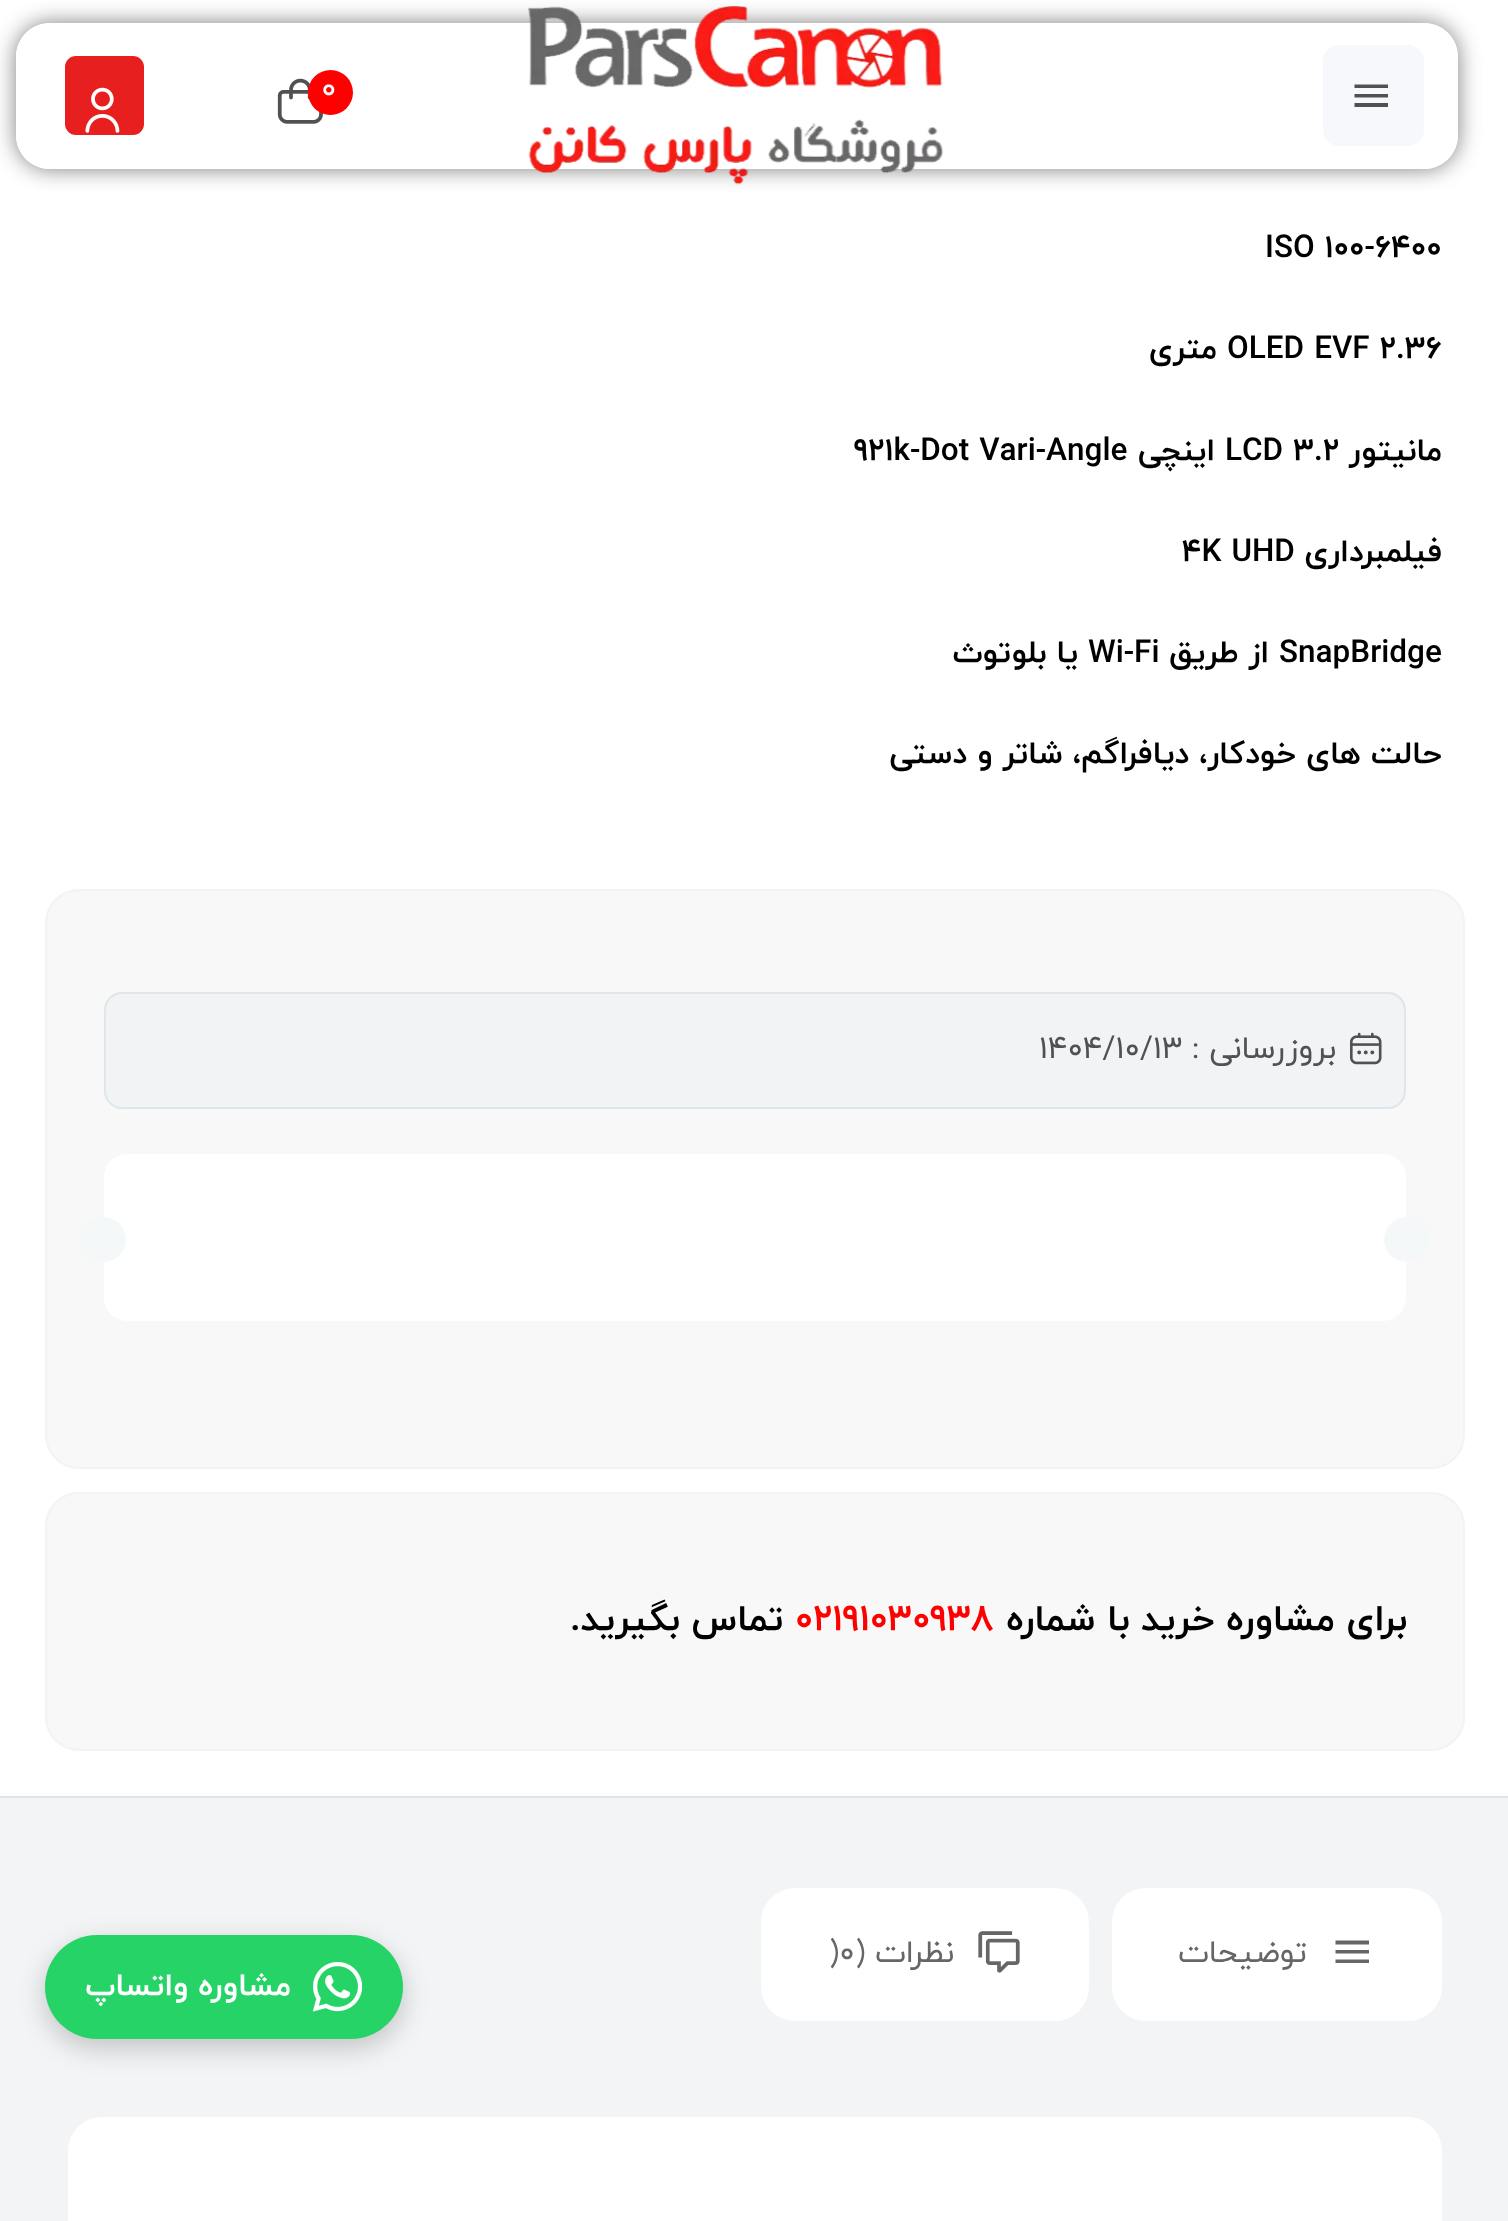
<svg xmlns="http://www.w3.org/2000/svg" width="1508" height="2221">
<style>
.a{font:31.5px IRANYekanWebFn;fill:#fff}
.b{font:bold 31.5px IRANYekanWebFn;fill:#000}
.c{font:bold 31.5px IRANYekanWebFn;direction:rtl;fill:#000}
.d{font:31.5px IRANYekanWebFn;direction:rtl;fill:#515151}
.e{font:31.5px IRANYekanWebFn;fill:#515151}
.f{font:bold 36.8px IRANYekanWebFn;direction:rtl;fill:#000}
.g{font:bold 36.8px IRANYekanWebFn;fill:#f00}
.h{font:31.5px IRANYekanWebFn;direction:rtl;fill:#666}
.i{font:31.5px IRANYekanWebFn;fill:#666}
.j{font:bold 31.5px IRANYekanWebFn;direction:rtl;fill:#fff}
</style>
<defs>
<clipPath id="clip1"><path d="M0 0h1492v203h-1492zm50 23h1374c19 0 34 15 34 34v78c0 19-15 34-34 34h-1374c-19 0-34-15-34-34v-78c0-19 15-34 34-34z" clip-rule="evenodd"/></clipPath>
</defs>
<rect width="100%" height="100%" fill="#fff"/>
<g clip-path="url(#clip1)">
<rect fill="#00000080" filter="blur(11px)" x="16" y="23" width="1442" height="146" rx="34"/>
</g>
<rect fill="#fff" x="16" y="23" width="1442" height="146" rx="34"/>
<rect fill="#f6f8fb" x="1323" y="45" width="101" height="101" rx="16"/>
<path fill="#515151" d="M1354.5 84.5h33.5v3.5h-33.5zm0 9.5h33.5v3.5h-33.5zm0 9h33.5v4h-33.5z"/>
<image href="1.png" x="527" y="6" width="417" height="179"/>
<image href="2.png" x="277" y="78" width="46" height="46"/>
<circle fill="#f00" cx="330.5" cy="92.5" r="22.5"/>
<rect fill="#e81f1f" x="65" y="56" width="79" height="79" rx="11"/>
<image href="3.png" x="85" y="87" width="35" height="46"/>
<rect fill="#f8f8f8" x="45" y="889" width="1420" height="580" rx="34"/>
<rect fill="none" stroke="#dfe6e947" stroke-width="2" x="46" y="890" width="1418" height="578" rx="33"/>
<rect fill="#f1f3f4" stroke="#dfe6e9" stroke-width="2" x="105" y="993" width="1300" height="115" rx="17"/>
<image href="4.png" x="1350" y="1032" width="32" height="33"/>
<rect fill="#fff" x="104" y="1154" width="1302" height="167" rx="23"/>
<circle fill="#f5f8f9" cx="1406.5" cy="1239.5" r="22.5"/>
<circle fill="#f5f8f9" cx="103.5" cy="1239.5" r="22.5"/>
<rect fill="#f8f8f8" x="45" y="1492" width="1420" height="259" rx="34"/>
<rect fill="none" stroke="#dfe6e947" stroke-width="2" x="46" y="1493" width="1418" height="257" rx="33"/>
<path fill="#f2f4f5" d="M0 1798h1508v423H0z"/>
<path fill="#dfe6e9" d="M0 1796h1508v2H0z"/>
<rect fill="#fff" x="1112" y="1888" width="330" height="133" rx="34"/>
<path fill="#666" d="M1335.5 1940.5h33.5v4h-33.5zm0 9.5h33.5v3.5h-33.5zm0 9.5h33.5v3.5h-33.5z"/>
<rect fill="#fff" x="761" y="1888" width="328" height="133" rx="34"/>
<image href="5.png" x="978" y="1931" width="42" height="42"/>
<rect fill="#fff" x="68" y="2117" width="1374" height="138" rx="34"/>
<rect fill="#00000033" filter="blur(13.5px)" x="45" y="1944" width="358" height="104" rx="52"/>
<rect fill="#25d366" x="45" y="1935" width="358" height="104" rx="52"/>
<image href="6.png" x="313" y="1962" width="49" height="50"/>
<text class="a" x="321" y="98">0</text>
<text class="b" x="1265" y="257">ISO 100-6400</text>
<text class="b" x="1227" y="358">OLED EVF 2.36</text>
<text class="c" x="1217" y="358">متری</text>
<text class="c" x="1442" y="460">مانیتور</text>
<text class="b" x="1225" y="460">LCD 3.2</text>
<text class="c" x="1215" y="460">اینچی</text>
<text class="b" x="854" y="460">921k-Dot Vari-Angle</text>
<text class="c" x="1442" y="561">فیلمبرداری</text>
<text class="b" x="1182" y="561">4K UHD</text>
<text class="b" x="1279" y="662">SnapBridge</text>
<text class="c" x="1269" y="662">از طریق</text>
<text class="b" x="1088" y="662">Wi-Fi</text>
<text class="c" x="1078" y="662">یا بلوتوث</text>
<text class="c" x="1442" y="763">حالت های خودکار، دیافراگم، شاتر و دستی</text>
<text class="d" x="1336" y="1058">بروزرسانی :</text>
<text class="e" x="1039" y="1058">1404/10/13</text>
<text class="f" x="1407" y="1630">برای مشاوره خرید با شماره</text>
<text class="g" x="795" y="1630">02191030938</text>
<text class="f" x="783" y="1630">تماس بگیرید.</text>
<text class="h" x="1307" y="1962">توضیحات</text>
<text class="h" x="954" y="1962">نظرات (</text>
<text class="i" x="829" y="1962">)0</text>
<text class="j" x="291" y="1995">مشاوره واتساپ</text>
</svg>
